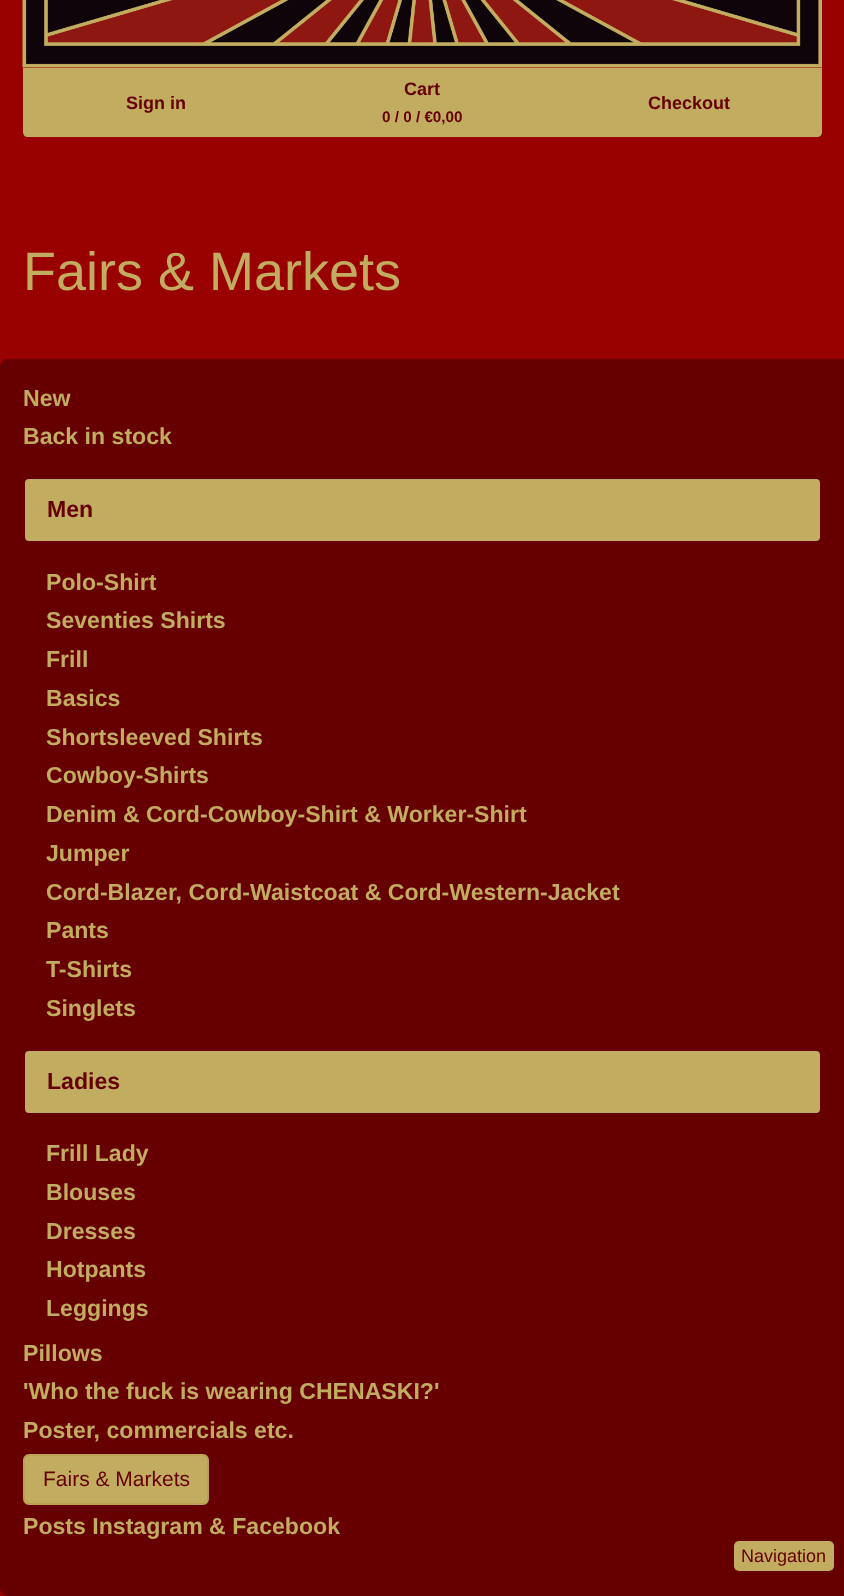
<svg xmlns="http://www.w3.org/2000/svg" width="844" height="1596">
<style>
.a{font:bold 18px Liberation Sans;fill:#600}
.b{font:bold 15.25px Liberation Sans;fill:#600}
.c{font:54px Liberation Sans;fill:#c2ac60}
.d{font:bold 23.1px Liberation Sans;fill:#c2ac60}
.e{font:bold 23.1px Liberation Sans;fill:#600}
.f{font:21px Liberation Sans;fill:#600}
.g{font:18px Liberation Sans;fill:#600}
</style>
<rect width="100%" height="100%" fill="#900"/>
<image href="1.png" x="22" y="0" width="800" height="68"/>
<path fill="#c2ac60" d="M23 68h267v69h-262c-3 0-5-2-5-5z"/>
<path fill="#c2ac60" d="M290 68h265v69H290z"/>
<path fill="#c2ac60" d="M555 68h267v64c0 3-2 5-5 5h-262z"/>
<path fill="#600" d="M8 359h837v1237h-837c-4.5 0-8-3.5-8-8v-1221c0-4.5 3.5-8 8-8z"/>
<rect fill="#c2ac60" stroke="#600" stroke-width="2" x="24" y="478" width="797" height="64" rx="5"/>
<rect fill="#c2ac60" stroke="#600" stroke-width="2" x="24" y="1050" width="797" height="64" rx="5"/>
<rect fill="#c2ac60" stroke="#bba24e" stroke-width="2" x="24" y="1455" width="184" height="49" rx="5"/>
<rect fill="#c2ac60" x="734" y="1541" width="100" height="30" rx="5"/>
<text class="a" x="126" y="109">Sign in</text>
<text class="a" x="404" y="95">Cart</text>
<text class="b" x="382" y="122">0 / 0 / €0,00</text>
<text class="a" x="648" y="109">Checkout</text>
<text class="c" x="23" y="290">Fairs &amp; Markets</text>
<text class="d" x="23" y="406">New</text>
<text class="d" x="23" y="444">Back in stock</text>
<text class="e" x="47" y="517">Men</text>
<text class="d" x="46" y="590">Polo-Shirt</text>
<text class="d" x="46" y="628">Seventies Shirts</text>
<text class="d" x="46" y="667">Frill</text>
<text class="d" x="46" y="706">Basics</text>
<text class="d" x="46" y="745">Shortsleeved Shirts</text>
<text class="d" x="46" y="783">Cowboy-Shirts</text>
<text class="d" x="46" y="822">Denim &amp; Cord-Cowboy-Shirt &amp; Worker-Shirt</text>
<text class="d" x="46" y="861">Jumper</text>
<text class="d" x="46" y="900">Cord-Blazer, Cord-Waistcoat &amp; Cord-Western-Jacket</text>
<text class="d" x="46" y="938">Pants</text>
<text class="d" x="46" y="977">T-Shirts</text>
<text class="d" x="46" y="1016">Singlets</text>
<text class="e" x="47" y="1089">Ladies</text>
<text class="d" x="46" y="1161">Frill Lady</text>
<text class="d" x="46" y="1200">Blouses</text>
<text class="d" x="46" y="1239">Dresses</text>
<text class="d" x="46" y="1277">Hotpants</text>
<text class="d" x="46" y="1316">Leggings</text>
<text class="d" x="23" y="1361">Pillows</text>
<text class="d" x="23" y="1399">'Who the fuck is wearing CHENASKI?'</text>
<text class="d" x="23" y="1438">Poster, commercials etc.</text>
<text class="f" x="43" y="1486">Fairs &amp; Markets</text>
<text class="d" x="23" y="1534">Posts Instagram &amp; Facebook</text>
<text class="g" x="741" y="1562">Navigation</text>
</svg>
